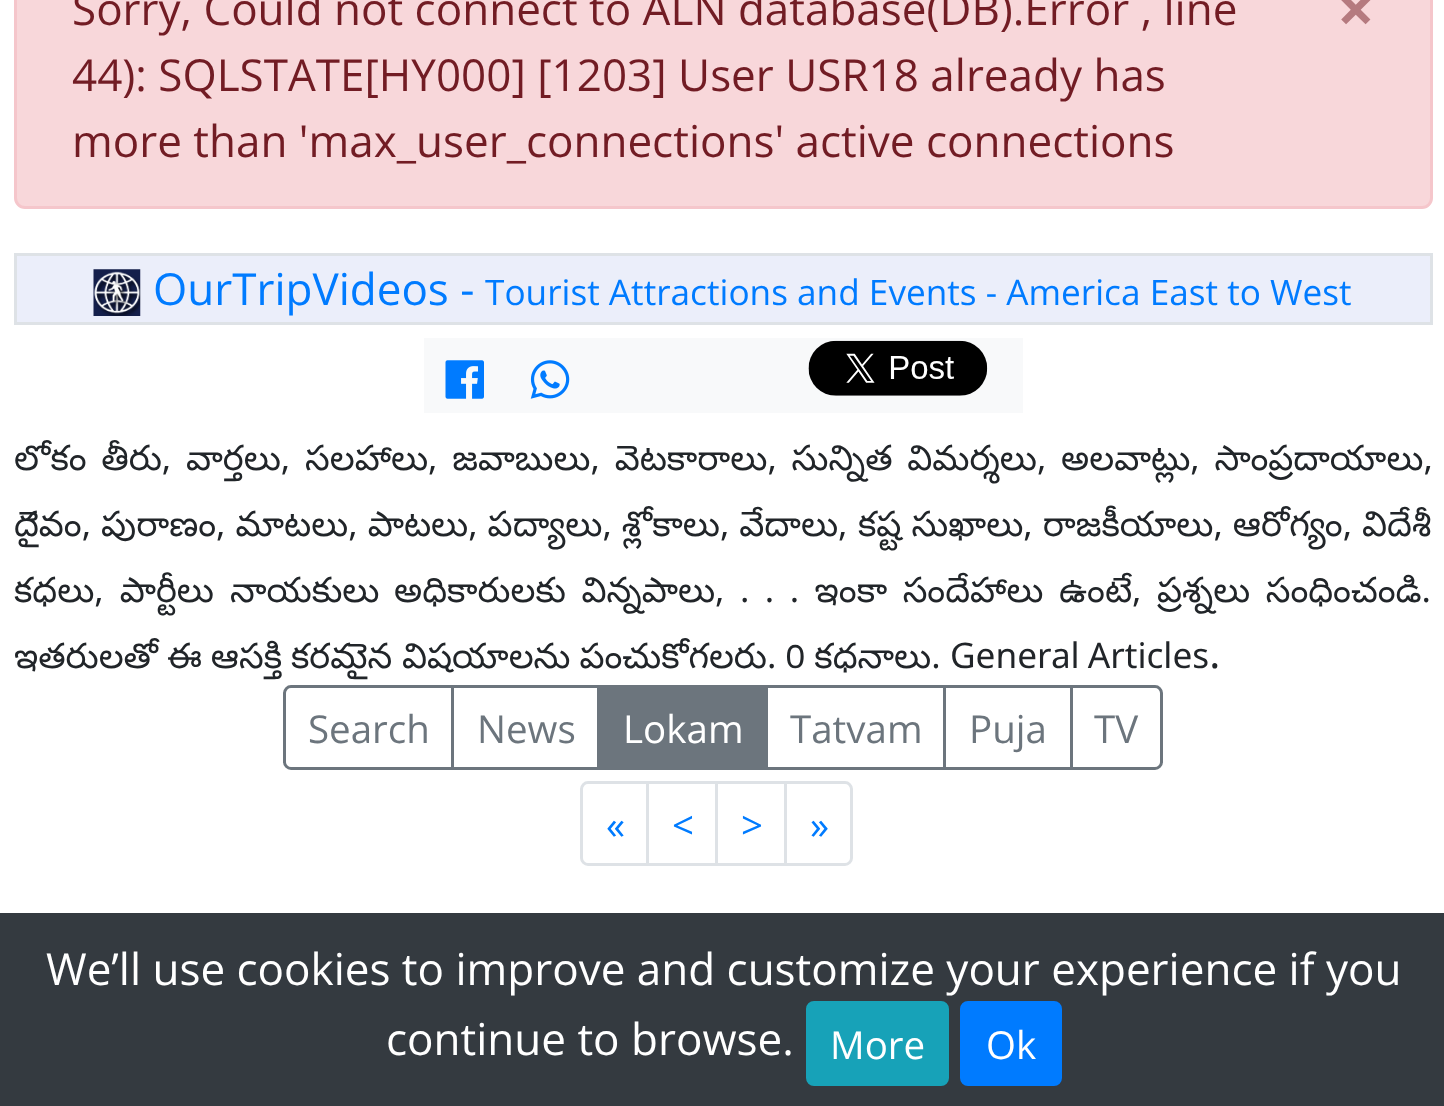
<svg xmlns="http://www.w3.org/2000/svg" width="1444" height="1106">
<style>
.a{font:44px Open Sans;fill:#721c24}
.b{font:bold 66px Open Sans;fill:#b57a7f}
.c{font:44px Open Sans;fill:#007bff}
.d{font:35.2px Open Sans;fill:#007bff}
.e{font:35.2px Noto Sans Telugu;fill:#212529}
.f{font:44px Open Sans;fill:#212529}
.g{font:38.5px Open Sans;fill:#6c757d}
.h{font:38.5px Open Sans;fill:#fff}
.i{font:38.5px Open Sans;fill:#007bff}
.j{font:44px Open Sans;fill:#fff}
</style>
<rect width="100%" height="100%" fill="#fff"/>
<rect fill="#f8d7da" stroke="#f5c6cb" stroke-width="3" x="15.5" y="-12.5" width="1416" height="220" rx="9.5"/>
<path fill="#ebeefa" stroke="#dee2e6" stroke-width="3" d="M15.5 254.5h1416v69H15.5z"/>
<image href="1.png" x="93" y="269" width="48" height="47"/>
<path fill="#f8f9fa" d="M424 338h599v75H424z"/>
<image href="2.png" x="445" y="360" width="39" height="39"/>
<image href="3.png" x="530" y="360" width="40" height="39"/>
<image href="4.png" x="808" y="340" width="180" height="56"/>
<path fill="none" stroke="#6c757d" stroke-width="3" d="M291 686.5h161.5v82h-161.5c-3.5 0-6.5-3-6.5-6.5v-69c0-3.5 3-6.5 6.5-6.5z"/>
<path fill="none" stroke="#6c757d" stroke-width="3" d="M452.5 686.5h146v82H452.5z"/>
<path fill="#6c757d" d="M600 685h165v85H600z"/>
<path fill="none" stroke="#6c757d" stroke-width="3" d="M766.5 686.5h178v82H766.5z"/>
<path fill="none" stroke="#6c757d" stroke-width="3" d="M944.5 686.5h127v82H944.5z"/>
<path fill="none" stroke="#6c757d" stroke-width="3" d="M1071.5 686.5h83.5c3.5 0 6.5 3 6.5 6.5v69c0 3.5-3 6.5-6.5 6.5h-83.5z"/>
<path fill="none" stroke="#dee2e6" stroke-width="3" d="M588 782.5h59.5v82h-59.5c-3.5 0-6.5-3-6.5-6.5v-69c0-3.5 3-6.5 6.5-6.5z"/>
<path fill="none" stroke="#dee2e6" stroke-width="3" d="M647.5 782.5h69v82H647.5z"/>
<path fill="none" stroke="#dee2e6" stroke-width="3" d="M716.5 782.5h69v82H716.5z"/>
<path fill="#fff" stroke="#dee2e6" stroke-width="3" d="M785.5 782.5h59.5c3.5 0 6.5 3 6.5 6.5v69c0 3.5-3 6.5-6.5 6.5h-59.5z"/>
<path fill="#343a40" d="M0 913h1444v193H0z"/>
<rect fill="#17a2b8" stroke="#17a2b8" stroke-width="3" x="807.5" y="1002.5" width="140" height="82" rx="6.5"/>
<rect fill="#007bff" stroke="#007bff" stroke-width="3" x="961.5" y="1002.5" width="99" height="82" rx="6.5"/>
<text class="a" x="72" y="25">Sorry, Could not connect to ALN database(DB).Error , line</text>
<text class="b" x="1337" y="33">×</text>
<text class="a" x="72" y="91">44): SQLSTATE[HY000] [1203] User USR18 already has</text>
<text class="a" x="72" y="157">more than 'max_user_connections' active connections</text>
<text class="c" x="153" y="305">OurTripVideos -</text>
<text class="d" x="485" y="305">Tourist Attractions and Events - America East to West</text>
<text class="e" x="14" y="470" word-spacing="4.75">లోకం తీరు, వార్తలు, సలహాలు, జవాబులు, వెటకారాలు, సున్నిత విమర్శలు, అలవాట్లు, సాంప్రదాయాలు,</text>
<text class="e" x="14" y="536">దైవం, పురాణం, మాటలు, పాటలు, పద్యాలు, శ్లోకాలు, వేదాలు,</text>
<text class="e" x="858" y="536">కష్ట సుఖాలు, రాజకీయాలు, ఆరోగ్యం, విదేశీ</text>
<text class="e" x="14" y="602" word-spacing="6">కధలు, పార్టీలు నాయకులు</text>
<text class="e" x="394" y="602" word-spacing="5.5">అధికారులకు విన్నపాలు, . . . ఇంకా సందేహాలు ఉంటే, ప్రశ్నలు సంధించండి.</text>
<text class="e" x="14" y="668" word-spacing="-1">ఇతరులతో ఈ ఆసక్తి కరమైన</text>
<text class="e" x="402" y="668" word-spacing="-1">విషయాలను పంచుకోగలరు. 0 కధనాలు.</text>
<text class="e" x="950" y="668" word-spacing="-2">General Articles</text>
<text class="f" x="1209" y="668">.</text>
<text class="g" x="308" y="743">Search</text>
<text class="g" x="477" y="743">News</text>
<text class="h" x="623" y="743">Lokam</text>
<text class="g" x="790" y="743">Tatvam</text>
<text class="g" x="969" y="743">Puja</text>
<text class="g" x="1094" y="743">TV</text>
<text class="i" x="606" y="839">«</text>
<text class="i" x="672" y="839">&lt;</text>
<text class="i" x="741" y="839">&gt;</text>
<text class="i" x="810" y="839">»</text>
<text class="j" x="46" y="985">We’ll use cookies to improve and customize your experience if you</text>
<text class="j" x="386" y="1055">continue to browse.</text>
<text class="h" x="830" y="1059">More</text>
<text class="h" x="986" y="1059">Ok</text>
</svg>
